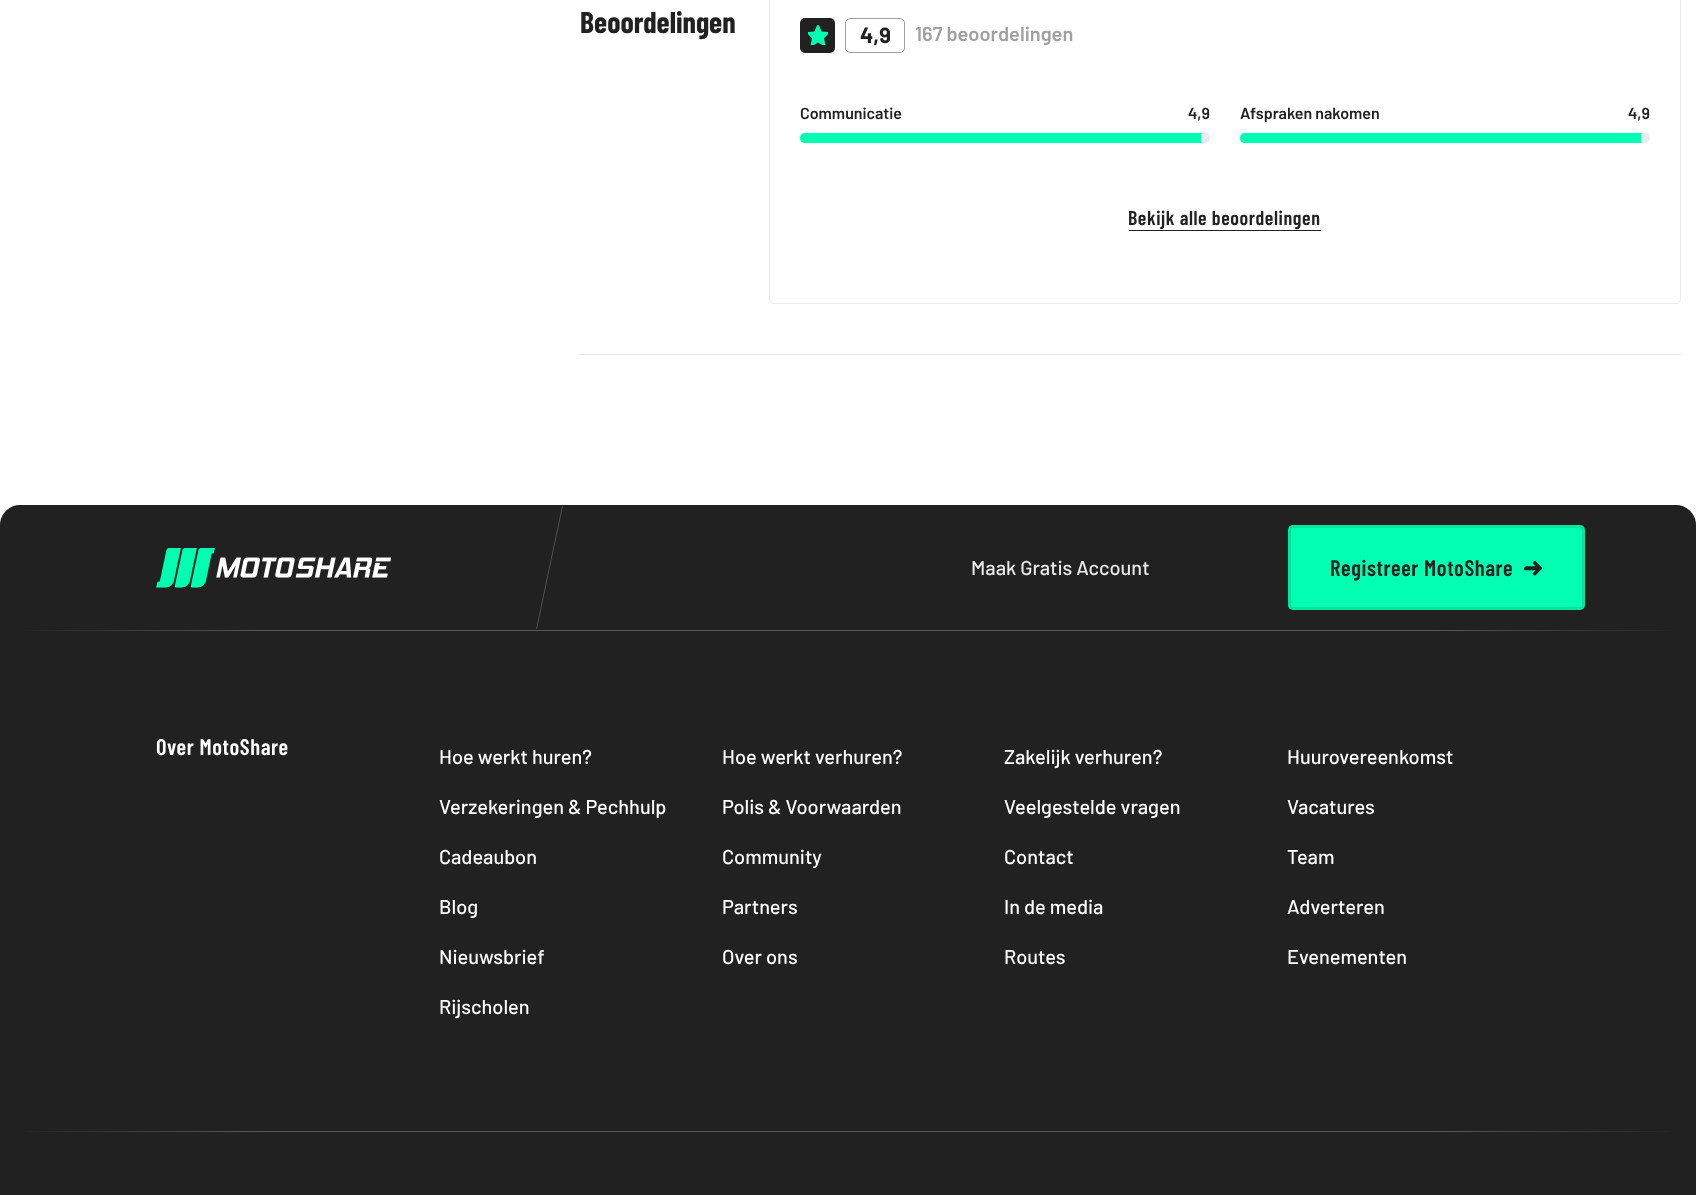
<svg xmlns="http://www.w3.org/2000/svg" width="1696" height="1195">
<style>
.a{font:bold 30px Barlow Condensed;fill:#212121}
.b{font:bold 22px Barlow;fill:#212121}
.c{font:600 20px Barlow;fill:#a0a0a0}
.d{font:600 16px Barlow;fill:#212121}
.e{font:600 20px Barlow Condensed;letter-spacing:0.6px;fill:#212121}
.f{font:500 20px Barlow;fill:#ebeaea}
.g{font:600 22.5px Barlow Condensed;letter-spacing:0.6px;fill:#212121}
.h{font:600 22.5px Barlow Condensed;letter-spacing:0.6px;fill:#fff}
.i{font:500 20px Barlow;fill:#fff}
</style>
<defs>
<linearGradient id="g1" gradientUnits="userSpaceOnUse" x1="1681" y1="631" x2="15" y2="631"><stop offset="0" stop-color="#212121"/><stop offset="0.15" stop-color="#585858"/><stop offset="0.85" stop-color="#585858"/><stop offset="1" stop-color="#212121"/></linearGradient>
<linearGradient id="g2" gradientUnits="userSpaceOnUse" x1="1681" y1="1132" x2="15" y2="1132"><stop offset="0" stop-color="#212121"/><stop offset="0.15" stop-color="#595959"/><stop offset="0.85" stop-color="#595959"/><stop offset="1" stop-color="#212121"/></linearGradient>
</defs>
<rect width="100%" height="100%" fill="#fff"/>
<path fill="#ebeaea" d="M580 354h1101v1H580z"/>
<rect fill="none" stroke="#ebeaea" x="769.5" y="-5.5" width="911" height="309" rx="4.5"/>
<rect fill="#212121" x="800" y="18" width="35" height="35" rx="5"/>
<image href="1.png" x="808" y="25" width="20" height="20"/>
<rect fill="none" stroke="#a0a0a0" x="845.5" y="18.5" width="59" height="34" rx="4.5"/>
<rect fill="#e9ecef" x="800" y="133" width="410" height="10" rx="5"/>
<path fill="#02ffb1" d="M805 133h396v10h-396c-3 0-5-2-5-5c0-3 2-5 5-5z"/>
<rect fill="#e9ecef" x="1240" y="133" width="410" height="10" rx="5"/>
<path fill="#02ffb1" d="M1245 133h396v10h-396c-3 0-5-2-5-5c0-3 2-5 5-5z"/>
<path fill="#212121" d="M1129 230h192v1H1129z"/>
<path fill="#212121" d="M20 505h1656c11 0 20 9 20 20v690h-1696v-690c0-11 9-20 20-20z"/>
<image href="2.png" x="156" y="548" width="235" height="40"/>
<path fill="#505050" d="M562 506h1l-26 123h-1z"/>
<rect fill="#02ffb1" x="1288" y="525" width="297" height="85" rx="5"/>
<rect fill="none" stroke="#0000001a" stroke-width="3" x="1289.5" y="526.5" width="294" height="82" rx="3.5"/>
<image href="3.png" x="1524" y="561" width="19" height="15"/>
<path fill="url(#g1)" d="M26 630h1644v1H26z"/>
<path fill="url(#g2)" d="M26 1131h1644v1H26z"/>
<text class="a" x="580" y="33">Beoordelingen</text>
<text class="b" x="860" y="43">4,9</text>
<text class="c" x="915" y="41">167 beoordelingen</text>
<text class="d" x="800" y="119">Communicatie</text>
<text class="d" x="1188" y="119">4,9</text>
<text class="d" x="1240" y="119">Afspraken nakomen</text>
<text class="d" x="1628" y="119">4,9</text>
<text class="e" x="1128" y="225">Bekijk alle beoordelingen</text>
<text class="f" x="971" y="575">Maak Gratis Account</text>
<text class="g" x="1330" y="576">Registreer MotoShare</text>
<text class="h" x="156" y="755">Over MotoShare</text>
<text class="i" x="439" y="764">Hoe werkt huren?</text>
<text class="i" x="722" y="764">Hoe werkt verhuren?</text>
<text class="i" x="1004" y="764">Zakelijk verhuren?</text>
<text class="i" x="1287" y="764">Huurovereenkomst</text>
<text class="i" x="439" y="814">Verzekeringen &amp; Pechhulp</text>
<text class="i" x="722" y="814">Polis &amp; Voorwaarden</text>
<text class="i" x="1004" y="814">Veelgestelde vragen</text>
<text class="i" x="1287" y="814">Vacatures</text>
<text class="i" x="439" y="864">Cadeaubon</text>
<text class="i" x="722" y="864">Community</text>
<text class="i" x="1004" y="864">Contact</text>
<text class="i" x="1287" y="864">Team</text>
<text class="i" x="439" y="914">Blog</text>
<text class="i" x="722" y="914">Partners</text>
<text class="i" x="1004" y="914">In de media</text>
<text class="i" x="1287" y="914">Adverteren</text>
<text class="i" x="439" y="964">Nieuwsbrief</text>
<text class="i" x="722" y="964">Over ons</text>
<text class="i" x="1004" y="964">Routes</text>
<text class="i" x="1287" y="964">Evenementen</text>
<text class="i" x="439" y="1014">Rijscholen</text>
</svg>
